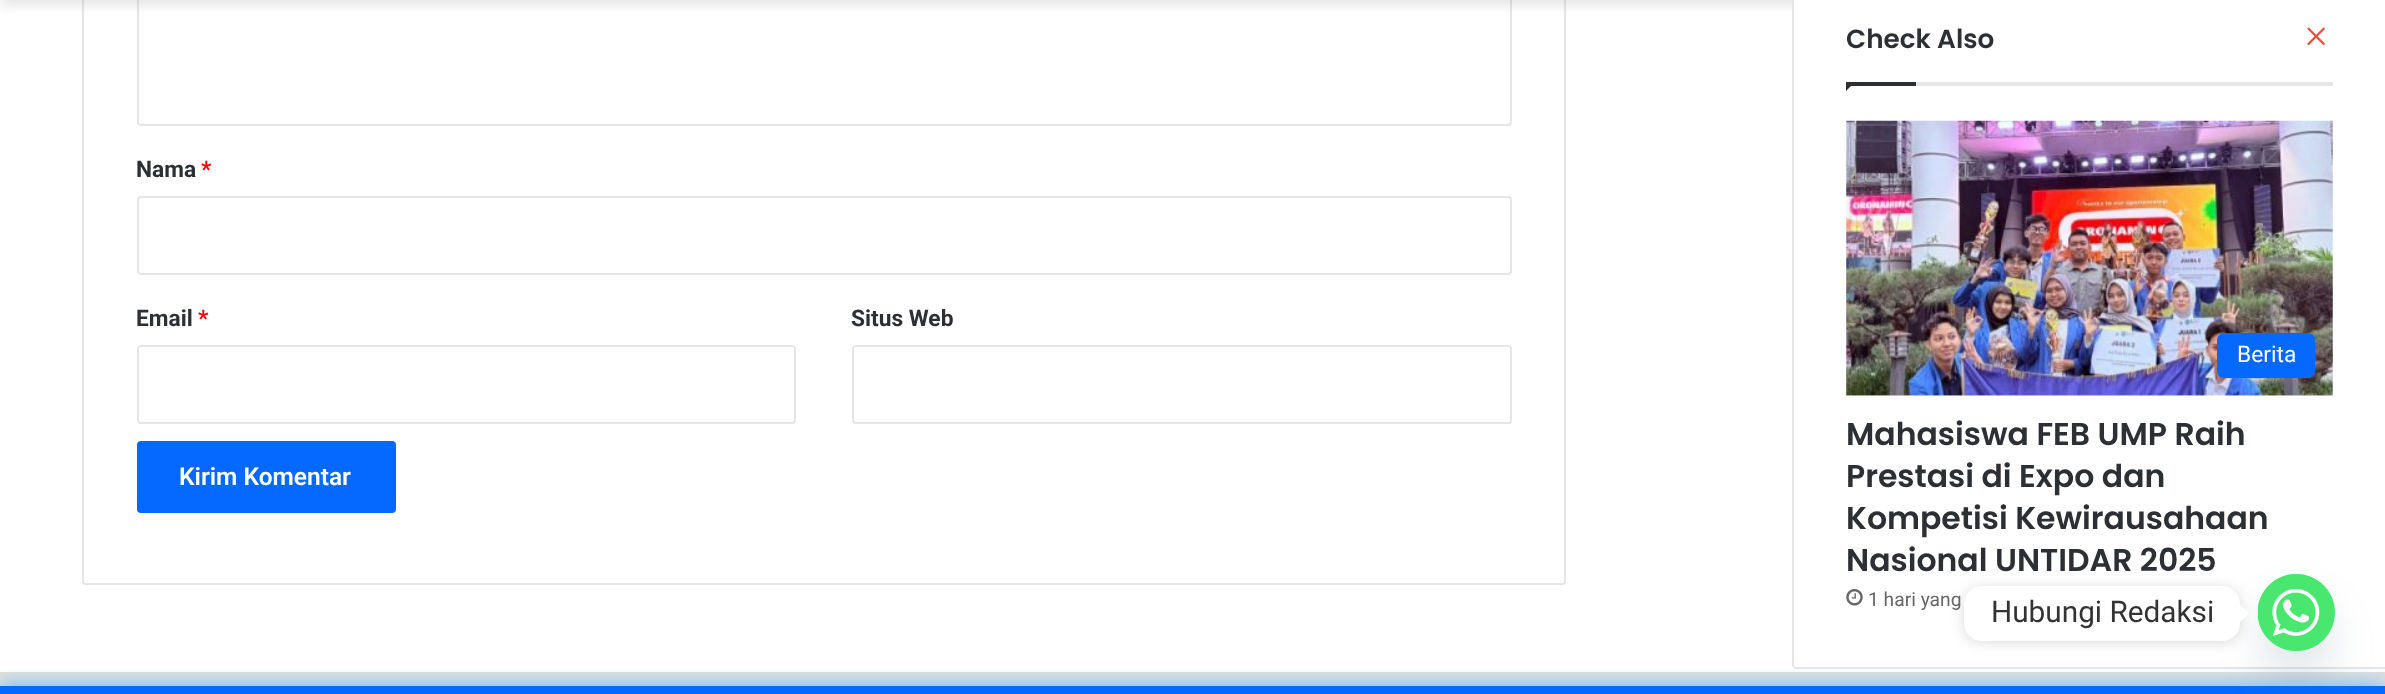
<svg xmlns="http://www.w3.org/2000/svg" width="2385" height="694">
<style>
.a{font:bold 22.75px Roboto;fill:#2c2f34}
.b{font:bold 22.75px Roboto;fill:#f00}
.c{font:600 24.5px Roboto;fill:#fff}
.d{font:600 26.25px Poppins;fill:#2c2f34}
.e{font:22.75px Roboto;fill:#fff}
.f{font:600 31.5px Poppins;fill:#2c2f34}
.g{font:19.25px Roboto;fill:#666}
.h{font:29.75px Roboto;fill:#333}
</style>
<rect width="100%" height="100%" fill="#fff"/>
<rect fill="none" stroke="#e6e6e6" stroke-width="2" x="83" y="-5" width="1482" height="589" rx="3"/>
<rect fill="none" stroke="#e6e6e6" stroke-width="2" x="138" y="-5" width="1373" height="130" rx="3"/>
<path fill="#63636333" filter="blur(7px)" d="M0 -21h2385v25H0z"/>
<rect fill="none" stroke="#e6e6e6" stroke-width="2" x="138" y="197" width="1373" height="77" rx="3"/>
<rect fill="none" stroke="#e6e6e6" stroke-width="2" x="138" y="346" width="657" height="77" rx="3"/>
<rect fill="none" stroke="#e6e6e6" stroke-width="2" x="853" y="346" width="658" height="77" rx="3"/>
<rect fill="#0669ff" x="137" y="441" width="259" height="72" rx="4"/>
<path fill="#fff" stroke="#e6e6e6" stroke-width="2" d="M1796-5h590v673h-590c-1.5 0-3-1.5-3-3v-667c0-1.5 1.5-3 3-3z"/>
<path fill="#e6e6e6" d="M1916 82h417v4H1916z"/>
<image href="1.png" x="2307" y="27" width="18" height="19"/>
<path fill="#2c2f34" d="M1846 82h9l-9 9z"/>
<path fill="#2c2f34" d="M1846 82h70v4H1846z"/>
<image href="2.png" x="1846" y="120" width="487" height="276"/>
<rect fill="#0669ff" x="2217" y="333" width="98" height="45" rx="7"/>
<image href="3.png" x="1846" y="589" width="17" height="17"/>
<path fill="#e0e0e0" d="M0 672h2385v14H0z"/>
<path fill="#0088ffb3" filter="blur(9px)" d="M0 686h2385v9H0z"/>
<path fill="#0669ff" d="M0 686h2385v8H0z"/>
<rect fill="#49687e29" filter="blur(21px)" x="2258" y="602" width="77" height="77" rx="38.5"/>
<circle fill="#49e670" cx="2296.5" cy="612.5" r="38.5"/>
<image href="4.png" x="2258" y="574" width="77" height="77"/>
<rect fill="#00000026" filter="blur(7px)" x="1964" y="588" width="276" height="54" rx="18"/>
<rect fill="#fff" x="1964" y="586" width="276" height="55" rx="18"/>
<path fill="#fff" d="M2240 622v-17.5l9 9z"/>
<text class="a" x="136" y="177">Nama</text>
<text class="b" x="201" y="177">*</text>
<text class="a" x="136" y="326">Email</text>
<text class="b" x="198" y="326">*</text>
<text class="a" x="851" y="326">Situs Web</text>
<text class="c" x="179" y="485">Kirim Komentar</text>
<text class="d" x="1846" y="48">Check Also</text>
<text class="e" x="2237" y="362">Berita</text>
<text class="f" x="1846" y="445">Mahasiswa FEB UMP Raih</text>
<text class="f" x="1846" y="487">Prestasi di Expo dan</text>
<text class="f" x="1846" y="529">Kompetisi Kewirausahaan</text>
<text class="f" x="1846" y="571">Nasional UNTIDAR 2025</text>
<text class="g" x="1868" y="606">1 hari yang</text>
<text class="h" x="1991" y="622">Hubungi Redaksi</text>
</svg>
